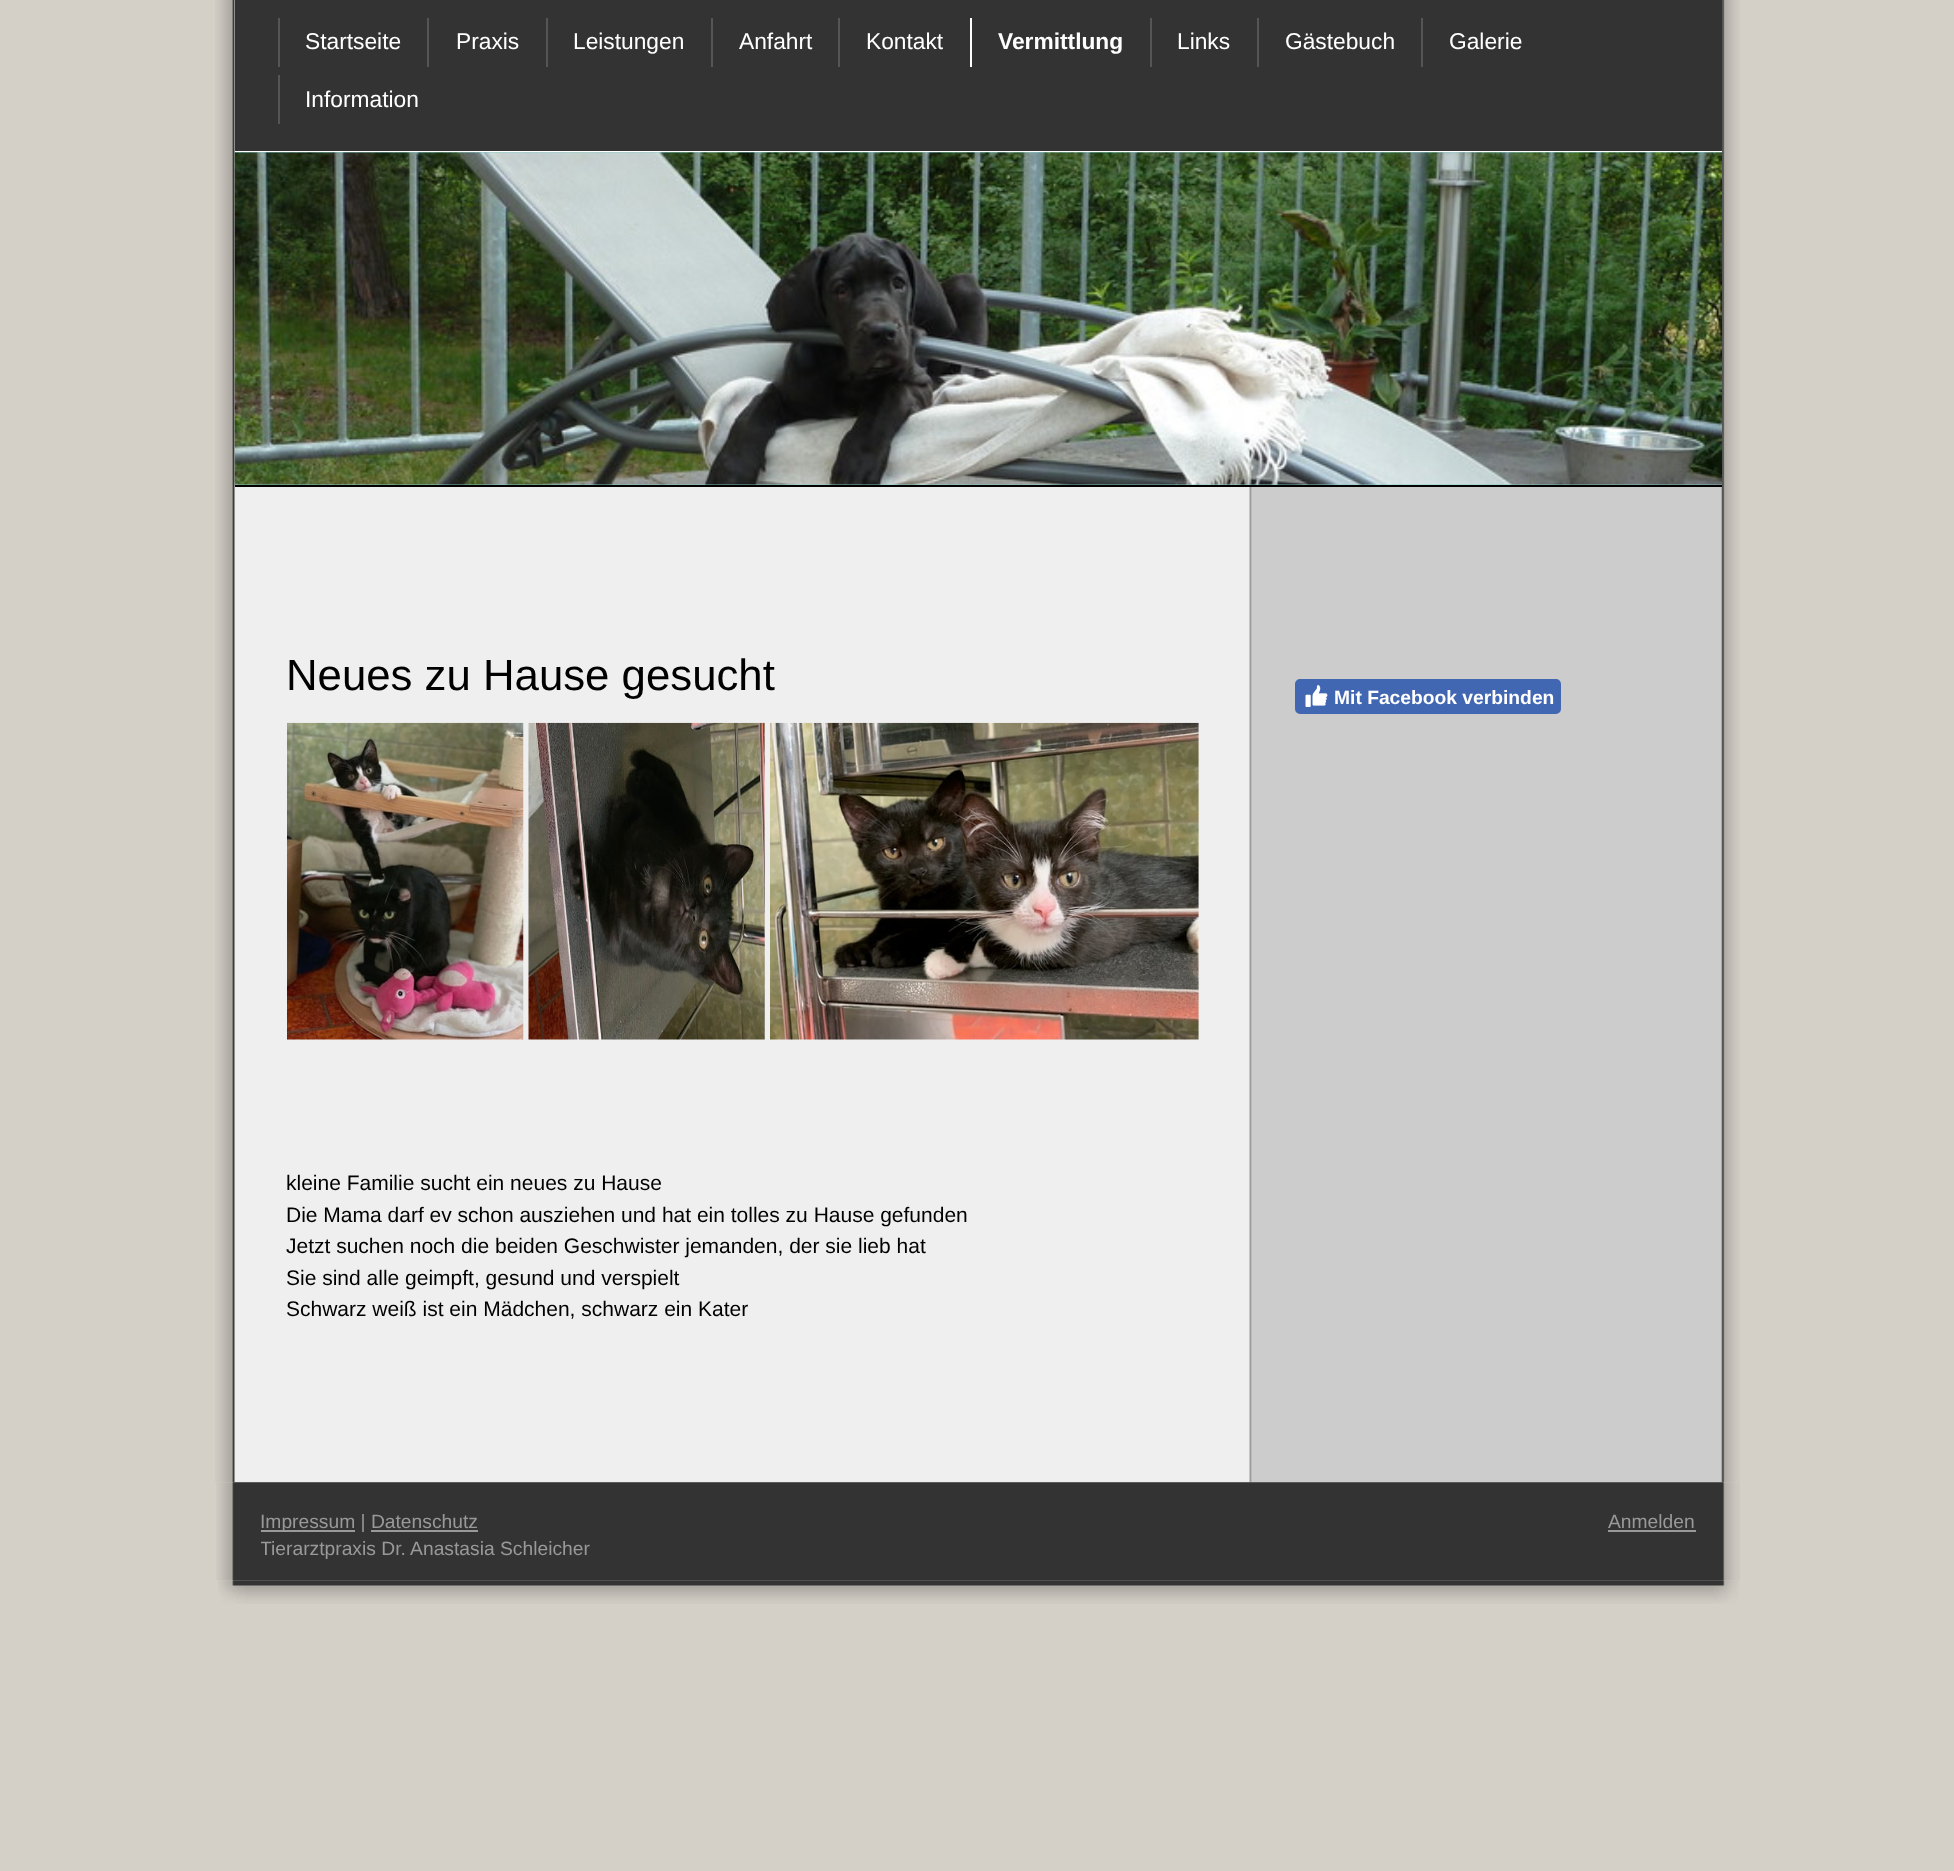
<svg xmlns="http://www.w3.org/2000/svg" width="1954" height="1871">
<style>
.a{font:22.75px Liberation Sans;fill:#fff}
.b{font:bold 22.75px Liberation Sans;fill:#fff}
.c{font:43.75px Liberation Sans;fill:#000}
.d{font:21px Liberation Sans;fill:#000}
.e{font:bold 19.25px Liberation Sans;fill:#fff}
.f{font:19.25px Liberation Sans;fill:#999}
</style>
<defs>
<clipPath id="clip1"><path d="M261 1509h1435v54H261z"/></clipPath>
</defs>
<rect width="100%" height="100%" fill="#d4d0c8"/>
<image href="1.png" x="215" y="0" width="1525" height="1483"/>
<path fill="#333" d="M235 0h1487v151H235z"/>
<path fill="#fff" d="M235 151h1487v1H235z"/>
<path fill="#555" d="M278 18h2v49H278z"/>
<path fill="#555" d="M427 18h2v49H427z"/>
<path fill="#555" d="M546 18h2v49H546z"/>
<path fill="#555" d="M711 18h2v49H711z"/>
<path fill="#555" d="M838 18h2v49H838z"/>
<path fill="#fff" d="M970 18h2v49H970z"/>
<path fill="#555" d="M1150 18h2v49H1150z"/>
<path fill="#555" d="M1257 18h2v49H1257z"/>
<path fill="#555" d="M1421 18h2v49H1421z"/>
<path fill="#555" d="M278 75h2v49H278z"/>
<path fill="#000" d="M235 485h1487v2H235z"/>
<path fill="#89cece" d="M235 152h1487v333H235z"/>
<image href="2.png" x="234" y="152" width="1488" height="333"/>
<image href="3.png" x="287" y="722" width="237" height="318"/>
<image href="4.png" x="528" y="722" width="237" height="318"/>
<image href="5.png" x="770" y="722" width="429" height="318"/>
<rect fill="#4267b2" stroke="#4267b2" stroke-width="2" x="1296" y="680" width="264" height="33" rx="4"/>
<image href="6.png" x="1305" y="685" width="23" height="22"/>
<image href="7.png" x="216" y="1482" width="1524" height="99"/>
<path fill="#999" d="M261 1530h94v2H261z"/>
<path fill="#999" d="M371 1530h107v2H371z"/>
<path fill="#999" d="M1608 1530h88v2H1608z"/>
<image href="8.png" x="218" y="1580" width="1521" height="24"/>
<text class="a" x="305" y="49">Startseite</text>
<text class="a" x="456" y="49">Praxis</text>
<text class="a" x="573" y="49">Leistungen</text>
<text class="a" x="739" y="49">Anfahrt</text>
<text class="a" x="866" y="49">Kontakt</text>
<text class="b" x="998" y="49">Vermittlung</text>
<text class="a" x="1177" y="49">Links</text>
<text class="a" x="1285" y="49">Gästebuch</text>
<text class="a" x="1449" y="49">Galerie</text>
<text class="a" x="305" y="107">Information</text>
<text class="c" x="286" y="690">Neues zu Hause gesucht</text>
<text class="d" x="286" y="1190">kleine Familie sucht ein neues zu Hause</text>
<text class="d" x="286" y="1222">Die Mama darf ev schon ausziehen und hat ein tolles zu Hause gefunden</text>
<text class="d" x="286" y="1253">Jetzt suchen noch die beiden Geschwister jemanden, der sie lieb hat</text>
<text class="d" x="286" y="1285">Sie sind alle geimpft, gesund und verspielt</text>
<text class="d" x="286" y="1316">Schwarz weiß ist ein Mädchen, schwarz ein Kater</text>
<text class="e" x="1334" y="704">Mit Facebook verbinden</text>
<text class="f" x="260" y="1528">Impressum | Datenschutz</text>
<g clip-path="url(#clip1)">
<text class="f" x="260" y="1555">Tierarztpraxis Dr. Anastasia Schleicher</text>
</g>
<text class="f" x="1608" y="1528">Anmelden</text>
</svg>
